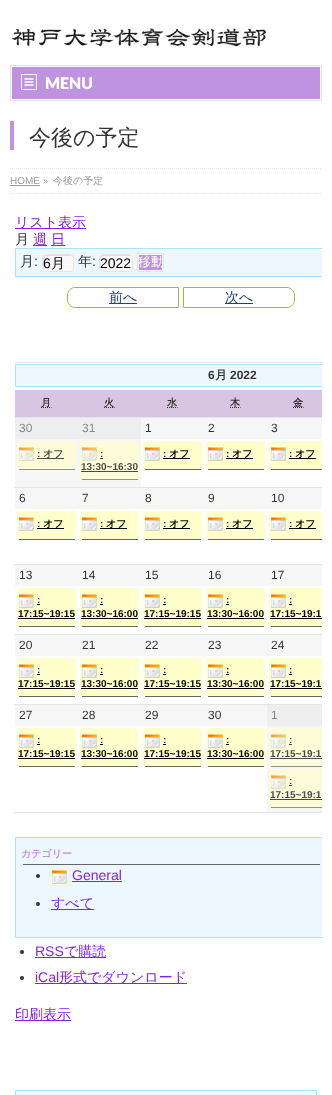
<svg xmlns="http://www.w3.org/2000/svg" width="332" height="1095">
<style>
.a{font:900 16px Lato;fill:#fff}
.b{font:500 22px WenQuanYi Zen Hei;fill:#333}
.c{font:10px Liberation Sans;fill:#999}
.d{font:500 10px WenQuanYi Zen Hei;fill:#999}
.e{font:500 14px WenQuanYi Zen Hei;fill:#8224e3}
.f{font:500 14px WenQuanYi Zen Hei;fill:#333}
.g{font:14px Liberation Sans;fill:#333}
.h{font:14px Liberation Sans;fill:#000}
.i{font:500 14px WenQuanYi Zen Hei;fill:#000}
.j{font:500 13px WenQuanYi Zen Hei;fill:#fff}
.k{font:500 14px WenQuanYi Zen Hei;fill:#243f82}
.l{font:bold 12px Liberation Sans;fill:#333}
.m{font:bold 12px WenQuanYi Zen Hei;fill:#333}
.n{font:bold 10px WenQuanYi Zen Hei;letter-spacing:1px;fill:#333}
.o{font:12px Liberation Sans;fill:#888}
.p{font:bold 10px Liberation Sans;fill:#4a4a4a}
.q{font:bold 10px WenQuanYi Zen Hei;fill:#4a4a4a}
.r{font:12px Liberation Sans;fill:#333}
.s{font:bold 10px Liberation Sans;fill:#000}
.t{font:bold 10px WenQuanYi Zen Hei;fill:#000}
.u{font:bold 10px WenQuanYi Zen Hei;fill:#c093e2}
.v{font:14px Liberation Sans;fill:#8224e3}
</style>
<defs>
<clipPath id="clip1"><path d="M10 209h312v819H10z"/></clipPath>
</defs>
<rect width="100%" height="100%" fill="#fff"/>
<image href="1.png" x="11" y="28" width="256" height="19"/>
<path fill="#c093e2" stroke="#f9f4fc" d="M11.5 66.5h309v33H11.5z"/>
<path fill="none" stroke="#e5e5e5" d="M10.5 65.5h311v35H10.5z"/>
<image href="2.png" x="21" y="74" width="16" height="16"/>
<path fill="#c093e2" d="M10 121h4v29H10z"/>
<path fill="none" stroke="#e5e5e5" stroke-dasharray="1 1" d="M10 168.5h312"/>
<path fill="none" stroke="#e5e5e5" stroke-dasharray="1 1" d="M10 193.5h312"/>
<path fill="#999" d="M10 185h30v1H10z"/>
<path fill="#8224e3" d="M15 228h71v1H15z"/>
<path fill="#8224e3" d="M33 245h14v1H33z"/>
<path fill="#8224e3" d="M51 245h14v1H51z"/>
<path fill="#edf7ff" d="M16 249h306v27H16z"/>
<g clip-path="url(#clip1)">
<path fill="none" stroke="#a9e3ff" d="M15.5 248.5h311v28H15.5z"/>
</g>
<rect fill="#f9f9f9" x="42" y="254" width="32" height="18" rx="4"/>
<path fill="#e0e0e0" d="M47 256h25.5c-.5-.5-1.5-1-2.5-1h-24c-1.5 0-3 1.5-3 3v10c0 1 .5 2 1 2.5v-6.5c0-2.5-1-8 3-8z"/>
<rect fill="none" stroke="#e5e5e5" x="42.5" y="254.5" width="31" height="17" rx="3.5"/>
<rect fill="#f9f9f9" x="99" y="254" width="34" height="18" rx="4"/>
<path fill="#e0e0e0" d="M104 256h25.5c.5 0 1.5 0 2 .5c-.5-1-1.5-1.5-2.5-1.5h-26c-1.5 0-3 1.5-3 3v10c0 1.5 1 2.5 2 3c-1.5-2.5-1.5-11.5-.5-13c.5-1.5 1.5-2 2.5-2z"/>
<rect fill="none" stroke="#e5e5e5" x="99.5" y="254.5" width="33" height="17" rx="3.5"/>
<path fill="#c093e2" stroke="#f9f4fc" d="M138.5 254.5h24v16H138.5z"/>
<path fill="none" stroke="#e5e5e5" d="M137.5 253.5h26v18H137.5z"/>
<path fill="none" stroke="#9b5" d="M75 287.5h103.5v20h-103.5c-4 0-7.5-3.5-7.5-7.5v-5c0-4 3.5-7.5 7.5-7.5z"/>
<path fill="#243f82" d="M109 303h28v1H109z"/>
<path fill="none" stroke="#9b5" d="M183.5 287.5h103.5c4 0 7.5 3.5 7.5 7.5v5c0 4-3.5 7.5-7.5 7.5h-103.5z"/>
<path fill="#243f82" d="M225 303h28v1H225z"/>
<path fill="#e5e5e5" d="M15 362h307v1H15z"/>
<path fill="#edf7ff" d="M16 365h306v21H16z"/>
<g clip-path="url(#clip1)">
<path fill="none" stroke="#a9e3ff" d="M15.5 364.5h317v22H15.5z"/>
</g>
<path fill="#d7c5e2" d="M15 390h307v27H15z"/>
<path fill="none" stroke="#333" stroke-dasharray="1 1" d="M41 407.5h10.5"/>
<path fill="none" stroke="#333" stroke-dasharray="1 1" d="M104 407.5h10.5"/>
<path fill="none" stroke="#333" stroke-dasharray="1 1" d="M167 407.5h10.5"/>
<path fill="none" stroke="#333" stroke-dasharray="1 1" d="M230 407.5h10.5"/>
<path fill="#e5e5e5" d="M14 417h308v1H14z"/>
<path fill="none" stroke="#333" stroke-dasharray="1 1" d="M293 407.5h10.5"/>
<path fill="#f6f6f6" d="M15 439h126v48H15z"/>
<path fill="#eee" d="M15 418h126v21H15z"/>
<rect fill="#fcfcd9" x="17" y="441" width="59" height="29" rx="3"/>
<path fill="#919191" d="M19 469h56v1H19z"/>
<image href="3.png" x="19" y="447" width="15" height="14"/>
<path fill="#4a4a4a" d="M37 458h27v1H37z"/>
<rect fill="#fcfcd9" x="80" y="441" width="59" height="39" rx="3"/>
<path fill="#919191" d="M82 479h56v1H82z"/>
<image href="3.png" x="82" y="447" width="15" height="14"/>
<path fill="#4a4a4a" d="M100 458h3v1H100z"/>
<path fill="#4a4a4a" d="M81 471h57v1H81z"/>
<path fill="#f6f6f6" d="M141 418h181v21H141z"/>
<rect fill="#ffc" x="143" y="441" width="59" height="29" rx="3"/>
<path fill="#666" d="M145 469h56v1H145z"/>
<image href="4.png" x="145" y="447" width="15" height="14"/>
<path fill="#000" d="M163 458h27v1H163z"/>
<rect fill="#ffc" x="206" y="441" width="59" height="29" rx="3"/>
<path fill="#666" d="M208 469h56v1H208z"/>
<image href="4.png" x="208" y="447" width="15" height="14"/>
<path fill="#000" d="M226 458h27v1H226z"/>
<path fill="#e5e5e5" d="M14 487h308v1H14z"/>
<path fill="#ffc" d="M272 441h50v29h-50c-1.5 0-3-1.5-3-3v-23c0-1.5 1.5-3 3-3z"/>
<path fill="#666" d="M271 469h51v1H271z"/>
<image href="4.png" x="271" y="447" width="15" height="14"/>
<path fill="#000" d="M289 458h27v1H289z"/>
<path fill="#f6f6f6" d="M15 488h307v21H15z"/>
<rect fill="#ffc" x="17" y="511" width="59" height="29" rx="3"/>
<path fill="#666" d="M19 539h56v1H19z"/>
<image href="4.png" x="19" y="517" width="15" height="14"/>
<path fill="#000" d="M37 528h27v1H37z"/>
<rect fill="#ffc" x="80" y="511" width="59" height="29" rx="3"/>
<path fill="#666" d="M82 539h56v1H82z"/>
<image href="4.png" x="82" y="517" width="15" height="14"/>
<path fill="#000" d="M100 528h27v1H100z"/>
<rect fill="#ffc" x="143" y="511" width="59" height="29" rx="3"/>
<path fill="#666" d="M145 539h56v1H145z"/>
<image href="4.png" x="145" y="517" width="15" height="14"/>
<path fill="#000" d="M163 528h27v1H163z"/>
<rect fill="#ffc" x="206" y="511" width="59" height="29" rx="3"/>
<path fill="#666" d="M208 539h56v1H208z"/>
<image href="4.png" x="208" y="517" width="15" height="14"/>
<path fill="#000" d="M226 528h27v1H226z"/>
<path fill="#e5e5e5" d="M14 564h308v1H14z"/>
<path fill="#ffc" d="M272 511h50v29h-50c-1.5 0-3-1.5-3-3v-23c0-1.5 1.5-3 3-3z"/>
<path fill="#666" d="M271 539h51v1H271z"/>
<image href="4.png" x="271" y="517" width="15" height="14"/>
<path fill="#000" d="M289 528h27v1H289z"/>
<path fill="#f6f6f6" d="M15 565h307v21H15z"/>
<rect fill="#ffc" x="17" y="588" width="59" height="39" rx="3"/>
<path fill="#666" d="M19 626h56v1H19z"/>
<image href="4.png" x="19" y="594" width="15" height="14"/>
<path fill="#000" d="M37 604h3v1H37z"/>
<path fill="#000" d="M18 618h57v1H18z"/>
<rect fill="#ffc" x="80" y="588" width="59" height="39" rx="3"/>
<path fill="#666" d="M82 626h56v1H82z"/>
<image href="4.png" x="82" y="594" width="15" height="14"/>
<path fill="#000" d="M100 604h3v1H100z"/>
<path fill="#000" d="M81 618h57v1H81z"/>
<rect fill="#ffc" x="143" y="588" width="59" height="39" rx="3"/>
<path fill="#666" d="M145 626h56v1H145z"/>
<image href="4.png" x="145" y="594" width="15" height="14"/>
<path fill="#000" d="M163 604h3v1H163z"/>
<path fill="#000" d="M144 618h57v1H144z"/>
<rect fill="#ffc" x="206" y="588" width="59" height="39" rx="3"/>
<path fill="#666" d="M208 626h56v1H208z"/>
<image href="4.png" x="208" y="594" width="15" height="14"/>
<path fill="#000" d="M226 604h3v1H226z"/>
<path fill="#000" d="M207 618h57v1H207z"/>
<path fill="#e5e5e5" d="M14 634h308v1H14z"/>
<path fill="#ffc" d="M272 588h50v39h-50c-1.5 0-3-1.5-3-3v-33c0-1.5 1.5-3 3-3z"/>
<path fill="#666" d="M271 626h51v1H271z"/>
<image href="4.png" x="271" y="594" width="15" height="14"/>
<path fill="#000" d="M289 604h3v1H289z"/>
<path fill="#000" d="M270 618h52v1H270z"/>
<path fill="#f6f6f6" d="M15 635h307v21H15z"/>
<rect fill="#ffc" x="17" y="658" width="59" height="39" rx="3"/>
<path fill="#666" d="M19 696h56v1H19z"/>
<image href="4.png" x="19" y="664" width="15" height="14"/>
<path fill="#000" d="M37 674h3v1H37z"/>
<path fill="#000" d="M18 688h57v1H18z"/>
<rect fill="#ffc" x="80" y="658" width="59" height="39" rx="3"/>
<path fill="#666" d="M82 696h56v1H82z"/>
<image href="4.png" x="82" y="664" width="15" height="14"/>
<path fill="#000" d="M100 674h3v1H100z"/>
<path fill="#000" d="M81 688h57v1H81z"/>
<rect fill="#ffc" x="143" y="658" width="59" height="39" rx="3"/>
<path fill="#666" d="M145 696h56v1H145z"/>
<image href="4.png" x="145" y="664" width="15" height="14"/>
<path fill="#000" d="M163 674h3v1H163z"/>
<path fill="#000" d="M144 688h57v1H144z"/>
<rect fill="#ffc" x="206" y="658" width="59" height="39" rx="3"/>
<path fill="#666" d="M208 696h56v1H208z"/>
<image href="4.png" x="208" y="664" width="15" height="14"/>
<path fill="#000" d="M226 674h3v1H226z"/>
<path fill="#000" d="M207 688h57v1H207z"/>
<path fill="#e5e5e5" d="M14 704h308v1H14z"/>
<path fill="#ffc" d="M272 658h50v39h-50c-1.5 0-3-1.5-3-3v-33c0-1.5 1.5-3 3-3z"/>
<path fill="#666" d="M271 696h51v1H271z"/>
<image href="4.png" x="271" y="664" width="15" height="14"/>
<path fill="#000" d="M289 674h3v1H289z"/>
<path fill="#000" d="M270 688h52v1H270z"/>
<path fill="#f6f6f6" d="M15 705h252v21H15z"/>
<rect fill="#ffc" x="17" y="728" width="59" height="39" rx="3"/>
<path fill="#666" d="M19 766h56v1H19z"/>
<image href="4.png" x="19" y="734" width="15" height="14"/>
<path fill="#000" d="M37 744h3v1H37z"/>
<path fill="#000" d="M18 758h57v1H18z"/>
<rect fill="#ffc" x="80" y="728" width="59" height="39" rx="3"/>
<path fill="#666" d="M82 766h56v1H82z"/>
<image href="4.png" x="82" y="734" width="15" height="14"/>
<path fill="#000" d="M100 744h3v1H100z"/>
<path fill="#000" d="M81 758h57v1H81z"/>
<rect fill="#ffc" x="143" y="728" width="59" height="39" rx="3"/>
<path fill="#666" d="M145 766h56v1H145z"/>
<image href="4.png" x="145" y="734" width="15" height="14"/>
<path fill="#000" d="M163 744h3v1H163z"/>
<path fill="#000" d="M144 758h57v1H144z"/>
<rect fill="#ffc" x="206" y="728" width="59" height="39" rx="3"/>
<path fill="#666" d="M208 766h56v1H208z"/>
<image href="4.png" x="208" y="734" width="15" height="14"/>
<path fill="#000" d="M226 744h3v1H226z"/>
<path fill="#000" d="M207 758h57v1H207z"/>
<path fill="#f6f6f6" d="M267 726h55v86H267z"/>
<path fill="#e5e5e5" d="M14 812h308v1H14z"/>
<path fill="#eee" d="M267 705h55v21H267z"/>
<path fill="#fcfcd9" d="M272 728h50v39h-50c-1.5 0-3-1.5-3-3v-33c0-1.5 1.5-3 3-3z"/>
<path fill="#919191" d="M271 766h51v1H271z"/>
<image href="3.png" x="271" y="734" width="15" height="14"/>
<path fill="#4a4a4a" d="M289 744h3v1H289z"/>
<path fill="#4a4a4a" d="M270 758h52v1H270z"/>
<path fill="#fcfcd9" d="M272 769h50v39h-50c-1.5 0-3-1.5-3-3v-33c0-1.5 1.5-3 3-3z"/>
<path fill="#919191" d="M271 807h51v1H271z"/>
<image href="3.png" x="271" y="775" width="15" height="14"/>
<path fill="#4a4a4a" d="M289 785h3v1H289z"/>
<path fill="#4a4a4a" d="M270 799h52v1H270z"/>
<path fill="#edf7ff" d="M16 838h306v99H16z"/>
<g clip-path="url(#clip1)">
<path fill="none" stroke="#a9e3ff" d="M15.5 837.5h311v100H15.5z"/>
</g>
<path fill="#666" d="M23 864h297v1H23z"/>
<circle fill="#333" cx="38" cy="876" r="2"/>
<path fill="#ffc" d="M51 869h16v16H51z"/>
<image href="4.png" x="52" y="870" width="15" height="14"/>
<path fill="#8224e3" d="M72 881h50v1H72z"/>
<circle fill="#333" cx="38" cy="904" r="2"/>
<path fill="#8224e3" d="M51 909h43v1H51z"/>
<circle fill="#333" cx="22" cy="952" r="2"/>
<path fill="#8224e3" d="M35 957h71v1H35z"/>
<circle fill="#333" cx="22" cy="978" r="2"/>
<path fill="#8224e3" d="M35 983h152v1H35z"/>
<path fill="#8224e3" d="M15 1020h56v1H15z"/>
<path fill="#edf7ff" stroke="#a9e3ff" d="M15.5 1090.5h301v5H15.5z"/>
<text class="a" x="45" y="89">MENU</text>
<text class="b" x="29" y="145">今後の予定</text>
<text class="c" x="10" y="184">HOME »</text>
<text class="d" x="53" y="184">今後の予定</text>
<text class="e" x="15" y="227">リスト表示</text>
<text class="f" x="15" y="244">月</text>
<text class="e" x="33" y="244">週</text>
<text class="e" x="51" y="244">日</text>
<text class="f" x="20" y="266">月</text>
<text class="g" x="34" y="266">:</text>
<text class="h" x="43" y="268">6</text>
<text class="i" x="51" y="268">月</text>
<text class="f" x="78" y="266">年</text>
<text class="g" x="92" y="266">:</text>
<text class="h" x="100" y="268">2022</text>
<text class="j" x="138" y="266">移動</text>
<text class="k" x="109" y="302">前へ</text>
<text class="k" x="225" y="302">次へ</text>
<text class="l" x="208" y="379">6</text>
<text class="m" x="215" y="379">月</text>
<text class="l" x="230" y="379">2022</text>
<text class="n" x="41" y="406">月</text>
<text class="n" x="104" y="406">火</text>
<text class="n" x="167" y="406">水</text>
<text class="n" x="230" y="406">木</text>
<text class="n" x="293" y="406">金</text>
<text class="o" x="19" y="432">30</text>
<text class="p" x="37" y="457">:</text>
<text class="q" x="43" y="457">オフ</text>
<text class="o" x="82" y="432">31</text>
<text class="p" x="100" y="457">:</text>
<text class="p" x="81" y="470">13:30~16:30</text>
<text class="r" x="145" y="432">1</text>
<text class="s" x="163" y="457">:</text>
<text class="t" x="169" y="457">オフ</text>
<text class="r" x="208" y="432">2</text>
<text class="s" x="226" y="457">:</text>
<text class="t" x="232" y="457">オフ</text>
<text class="r" x="271" y="432">3</text>
<text class="s" x="289" y="457">:</text>
<text class="t" x="295" y="457">オフ</text>
<text class="r" x="19" y="502">6</text>
<text class="s" x="37" y="527">:</text>
<text class="t" x="43" y="527">オフ</text>
<text class="r" x="82" y="502">7</text>
<text class="s" x="100" y="527">:</text>
<text class="t" x="106" y="527">オフ</text>
<text class="r" x="145" y="502">8</text>
<text class="s" x="163" y="527">:</text>
<text class="t" x="169" y="527">オフ</text>
<text class="r" x="208" y="502">9</text>
<text class="s" x="226" y="527">:</text>
<text class="t" x="232" y="527">オフ</text>
<text class="r" x="271" y="502">10</text>
<text class="s" x="289" y="527">:</text>
<text class="t" x="295" y="527">オフ</text>
<text class="r" x="19" y="579">13</text>
<text class="s" x="37" y="603">:</text>
<text class="s" x="18" y="617">17:15~19:15</text>
<text class="r" x="82" y="579">14</text>
<text class="s" x="100" y="603">:</text>
<text class="s" x="81" y="617">13:30~16:00</text>
<text class="r" x="145" y="579">15</text>
<text class="s" x="163" y="603">:</text>
<text class="s" x="144" y="617">17:15~19:15</text>
<text class="r" x="208" y="579">16</text>
<text class="s" x="226" y="603">:</text>
<text class="s" x="207" y="617">13:30~16:00</text>
<text class="r" x="271" y="579">17</text>
<text class="s" x="289" y="603">:</text>
<text class="s" x="270" y="617">17:15~19:1</text>
<text class="r" x="19" y="649">20</text>
<text class="s" x="37" y="673">:</text>
<text class="s" x="18" y="687">17:15~19:15</text>
<text class="r" x="82" y="649">21</text>
<text class="s" x="100" y="673">:</text>
<text class="s" x="81" y="687">13:30~16:00</text>
<text class="r" x="145" y="649">22</text>
<text class="s" x="163" y="673">:</text>
<text class="s" x="144" y="687">17:15~19:15</text>
<text class="r" x="208" y="649">23</text>
<text class="s" x="226" y="673">:</text>
<text class="s" x="207" y="687">13:30~16:00</text>
<text class="r" x="271" y="649">24</text>
<text class="s" x="289" y="673">:</text>
<text class="s" x="270" y="687">17:15~19:1</text>
<text class="r" x="19" y="719">27</text>
<text class="s" x="37" y="743">:</text>
<text class="s" x="18" y="757">17:15~19:15</text>
<text class="r" x="82" y="719">28</text>
<text class="s" x="100" y="743">:</text>
<text class="s" x="81" y="757">13:30~16:00</text>
<text class="r" x="145" y="719">29</text>
<text class="s" x="163" y="743">:</text>
<text class="s" x="144" y="757">17:15~19:15</text>
<text class="r" x="208" y="719">30</text>
<text class="s" x="226" y="743">:</text>
<text class="s" x="207" y="757">13:30~16:00</text>
<text class="o" x="271" y="719">1</text>
<text class="p" x="289" y="743">:</text>
<text class="p" x="270" y="757">17:15~19:1</text>
<text class="p" x="289" y="784">:</text>
<text class="p" x="270" y="798">17:15~19:1</text>
<text class="u" x="21" y="857">カテゴリー</text>
<text class="v" x="72" y="880">General</text>
<text class="e" x="51" y="908">すべて</text>
<text class="v" x="35" y="956">RSS</text>
<text class="e" x="64" y="956">で購読</text>
<text class="v" x="35" y="982">iCal</text>
<text class="e" x="59" y="982">形式でダウンロード</text>
<text class="e" x="15" y="1019">印刷表示</text>
</svg>
